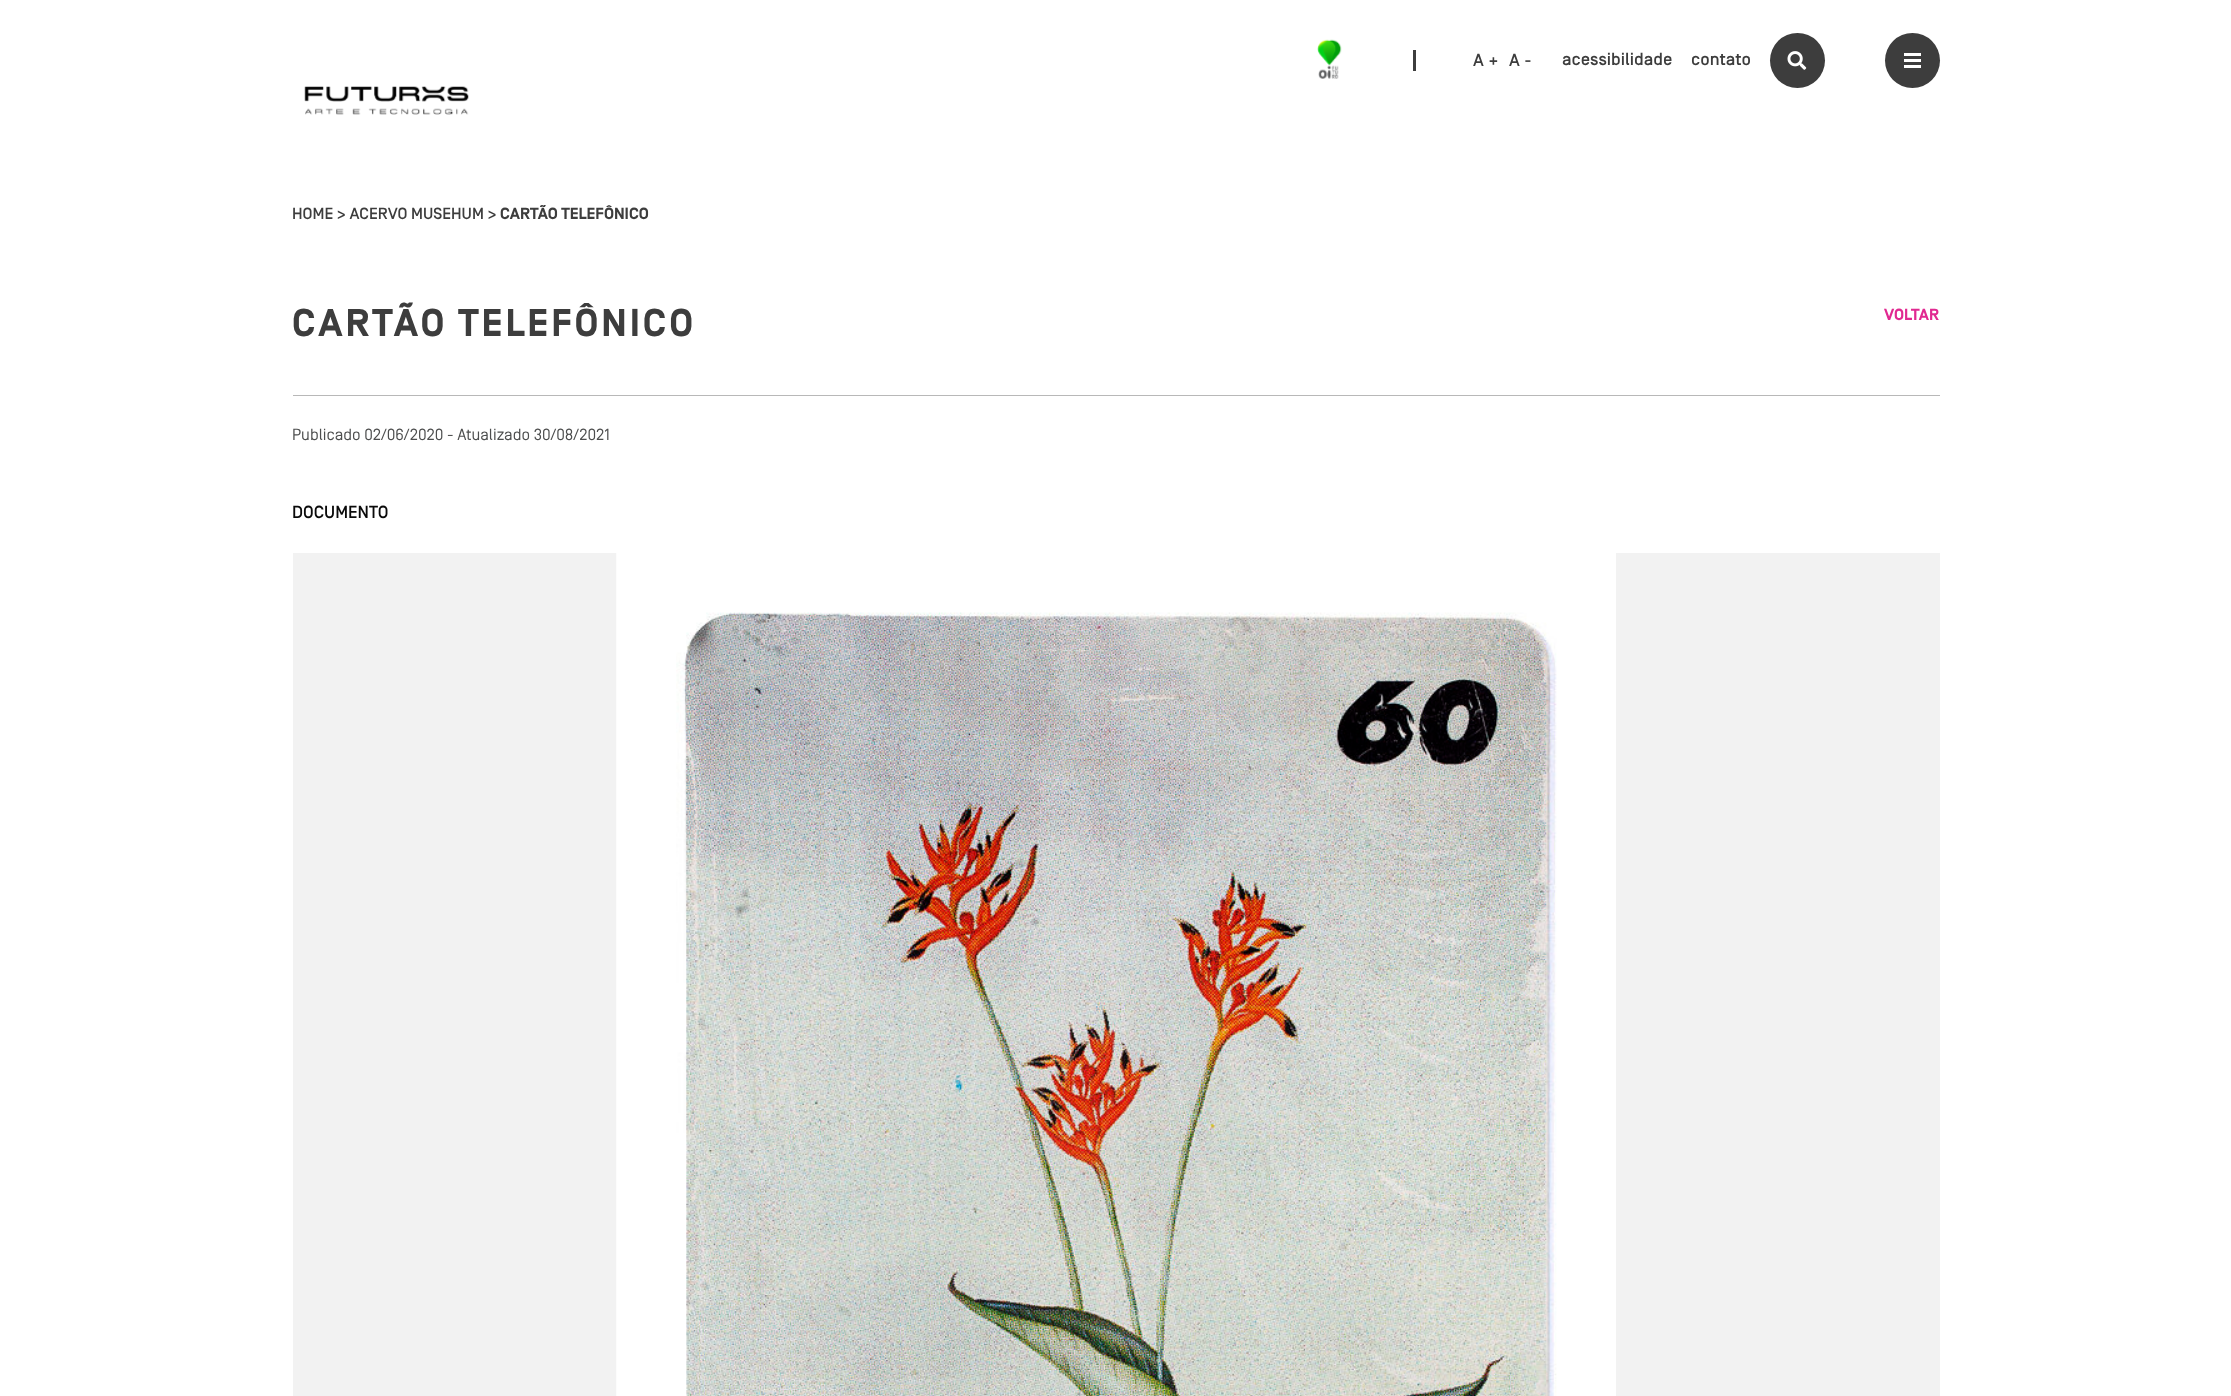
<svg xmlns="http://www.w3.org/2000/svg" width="2231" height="1396">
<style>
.a{font:500 17.5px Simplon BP;letter-spacing:0.5px;fill:#3d3d3d}
.b{font:500 17.5px Simplon BP;fill:#3d3d3d}
.c{font:500 16.25px Simplon BP;fill:#3d3d3d}
.d{font:bold 16.25px Simplon BP;fill:#3d3d3d}
.e{font:bold 38.75px Simplon BP;letter-spacing:2.9px;fill:#3d3d3d}
.f{font:bold 16.25px Simplon BP;fill:#e12991}
.g{font:16.25px Simplon BP;fill:#4d4e4e}
.h{font:500 17.5px Simplon BP;fill:#0a0a0a}
</style>
<rect width="100%" height="100%" fill="#fff"/>
<image href="1.png" x="1317" y="39" width="25" height="40"/>
<path fill="#3d3d3d" d="M1413 50h3v21H1413z"/>
<circle fill="#3d3d3d" cx="1797.5" cy="60.5" r="27.5"/>
<image href="2.png" x="1787" y="51" width="20" height="19"/>
<circle fill="#3d3d3d" cx="1912.5" cy="60.5" r="27.5"/>
<path fill="#fff" d="M1904 53h17v3H1904z"/>
<path fill="#fff" d="M1904 59h17v3H1904z"/>
<path fill="#fff" d="M1904 65h17v3H1904z"/>
<image href="3.png" x="304" y="86" width="165" height="29"/>
<path fill="#b8b8b8" d="M293 395h1647v1H293z"/>
<path fill="#f2f2f2" d="M293 553h1647v843H293z"/>
<image href="4.png" x="616" y="553" width="1000" height="843"/>
<text class="a" x="1473" y="66">A +</text>
<text class="a" x="1509" y="66">A -</text>
<text class="b" x="1562" y="65">acessibilidade</text>
<text class="b" x="1691" y="65">contato</text>
<text class="c" x="292" y="219">HOME &gt; ACERVO MUSEHUM &gt;</text>
<text class="d" x="500" y="219">CARTÃO TELEFÔNICO</text>
<text class="e" x="292" y="336">CARTÃO TELEFÔNICO</text>
<text class="f" x="1884" y="320">VOLTAR</text>
<text class="g" x="292" y="440">Publicado 02/06/2020 - Atualizado 30/08/2021</text>
<text class="h" x="292" y="518">DOCUMENTO</text>
</svg>
